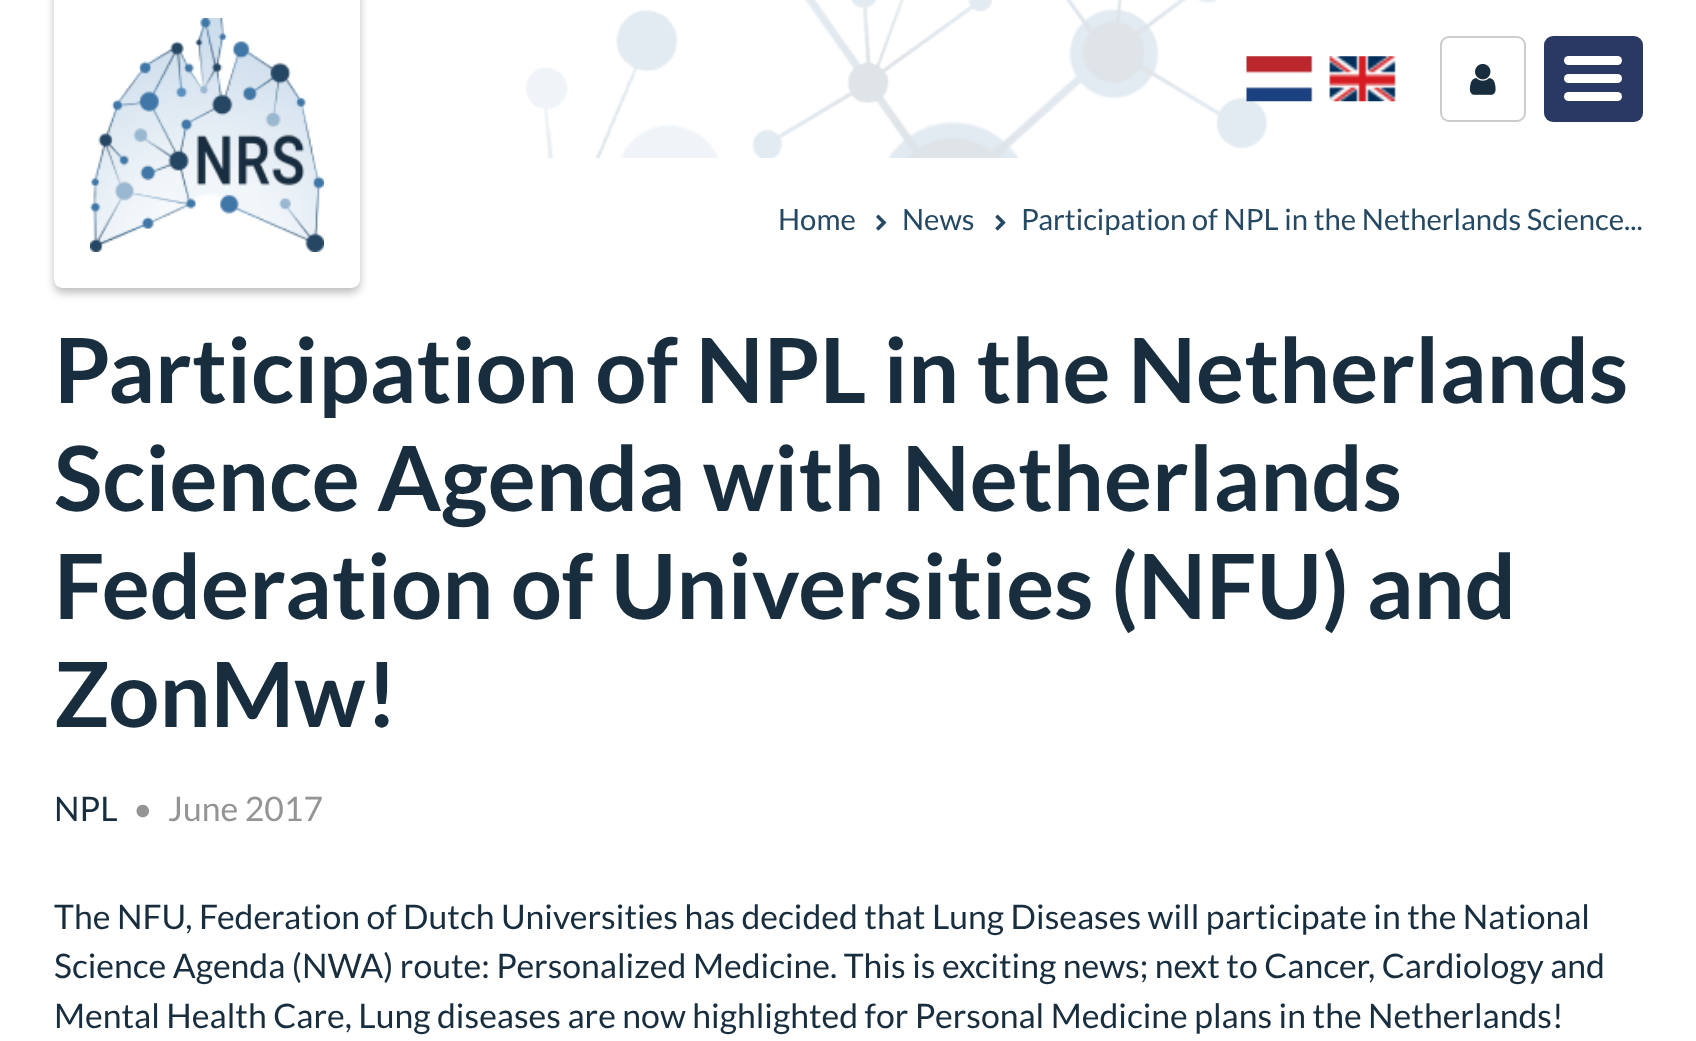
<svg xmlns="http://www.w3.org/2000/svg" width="1696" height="1041">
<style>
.a{font:29.25px Lato;fill:#254863}
.b{font:bold 90px Lato;fill:#182e3e}
.c{font:33.75px Lato;fill:#182e3e}
.d{font:33.75px Lato;fill:#949494}
</style>
<rect width="100%" height="100%" fill="#fff"/>
<image href="1.png" x="525" y="0" width="743" height="158"/>
<rect fill="#00000040" filter="blur(4.5px)" x="54" y="-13" width="306" height="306" rx="9"/>
<path fill="#fff" d="M54 0h306v279c0 5-4 9-9 9h-288c-5 0-9-4-9-9z"/>
<image href="2.png" x="90" y="18" width="234" height="234"/>
<image href="3.png" x="1246" y="56" width="67" height="46"/>
<image href="4.png" x="1329" y="56" width="67" height="46"/>
<rect fill="none" stroke="#ccc" stroke-width="2" x="1441" y="37" width="84" height="84" rx="8"/>
<image href="5.png" x="1469" y="64" width="27" height="31"/>
<rect fill="#2a3964" x="1544" y="36" width="99" height="86" rx="9"/>
<rect fill="#fff" x="1564" y="74" width="58" height="9" rx="4.5"/>
<rect fill="#fff" x="1564" y="56" width="58" height="9" rx="4.5"/>
<rect fill="#fff" x="1564" y="92" width="58" height="9" rx="4.5"/>
<image href="6.png" x="876" y="214" width="11" height="17"/>
<image href="7.png" x="995" y="214" width="11" height="17"/>
<text class="a" x="778" y="230">Home</text>
<text class="a" x="902" y="230">News</text>
<text class="a" x="1021" y="230">Participation of NPL in the Netherlands Science...</text>
<text class="b" x="54" y="403">Participation of NPL in the Netherlands</text>
<text class="b" x="54" y="511">Science Agenda with Netherlands</text>
<text class="b" x="54" y="619">Federation of Universities (NFU) and</text>
<text class="b" x="54" y="727">ZonMw!</text>
<text class="c" x="54" y="821">NPL</text>
<text class="d" x="133" y="821">•</text>
<text class="d" x="168" y="821">June 2017</text>
<text class="c" x="54" y="929">The NFU, Federation of Dutch Universities has decided that Lung Diseases will participate in the National</text>
<text class="c" x="54" y="978">Science Agenda (NWA) route: Personalized Medicine. This is exciting news; next to Cancer, Cardiology and</text>
<text class="c" x="54" y="1028">Mental Health Care, Lung diseases are now highlighted for Personal Medicine plans in the Netherlands!</text>
</svg>
